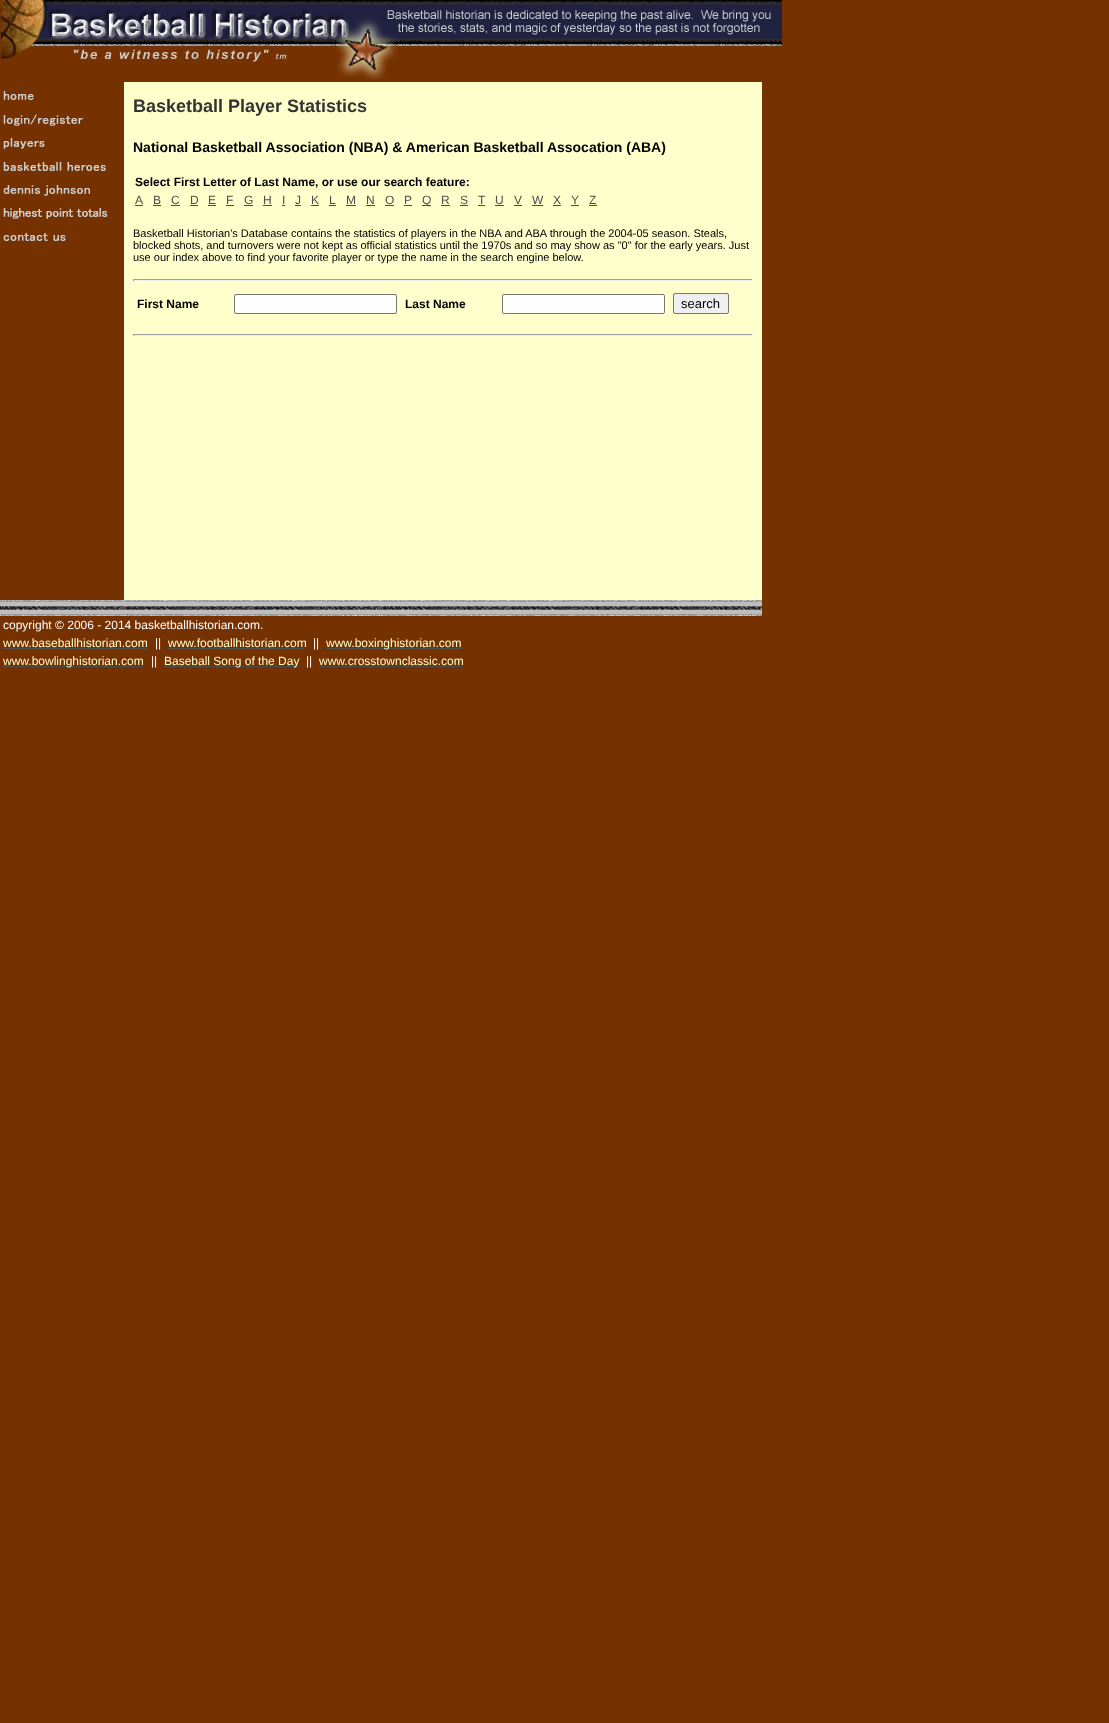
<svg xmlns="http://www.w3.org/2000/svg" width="1109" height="1723">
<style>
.a{font:bold 18px Liberation Sans;fill:#333}
.b{font:bold 14px Liberation Sans;fill:#000}
.c{font:bold 12px Liberation Sans;fill:#000}
.d{font:12px Liberation Sans;fill:#4d4d4d}
.e{font:11px Liberation Sans;fill:#000}
.f{font:13px Liberation Sans;fill:#000}
.g{font:12px Liberation Sans;fill:#fff}
.h{font:12px Liberation Sans;fill:#ffc}
</style>
<rect width="100%" height="100%" fill="#753100"/>
<image href="1.png" x="0" y="0" width="782" height="80"/>
<image href="2.png" x="3" y="91" width="105" height="150"/>
<path fill="#ffc" d="M124 82h638v518H124z"/>
<path fill="#4d4d4d" d="M135 205h8v1H135z"/>
<path fill="#4d4d4d" d="M153 205h8v1H153z"/>
<path fill="#4d4d4d" d="M171 205h9v1H171z"/>
<path fill="#4d4d4d" d="M190 205h8v1H190z"/>
<path fill="#4d4d4d" d="M208 205h8v1H208z"/>
<path fill="#4d4d4d" d="M226 205h8v1H226z"/>
<path fill="#4d4d4d" d="M244 205h9v1H244z"/>
<path fill="#4d4d4d" d="M263 205h9v1H263z"/>
<path fill="#4d4d4d" d="M282 205h3v1H282z"/>
<path fill="#4d4d4d" d="M295 205h6v1H295z"/>
<path fill="#4d4d4d" d="M311 205h8v1H311z"/>
<path fill="#4d4d4d" d="M329 205h7v1H329z"/>
<path fill="#4d4d4d" d="M346 205h10v1H346z"/>
<path fill="#4d4d4d" d="M366 205h9v1H366z"/>
<path fill="#4d4d4d" d="M385 205h9v1H385z"/>
<path fill="#4d4d4d" d="M404 205h8v1H404z"/>
<path fill="#4d4d4d" d="M422 205h9v1H422z"/>
<path fill="#4d4d4d" d="M441 205h9v1H441z"/>
<path fill="#4d4d4d" d="M460 205h8v1H460z"/>
<path fill="#4d4d4d" d="M478 205h7v1H478z"/>
<path fill="#4d4d4d" d="M495 205h9v1H495z"/>
<path fill="#4d4d4d" d="M514 205h8v1H514z"/>
<path fill="#4d4d4d" d="M532 205h11v1H532z"/>
<path fill="#4d4d4d" d="M553 205h8v1H553z"/>
<path fill="#4d4d4d" d="M571 205h8v1H571z"/>
<path fill="#4d4d4d" d="M589 205h8v1H589z"/>
<path fill="#9f9f9f" d="M133 279h620v1H133z"/>
<path fill="#eee" d="M752 279h1v2H752z"/>
<path fill="#eee" d="M133 280h620v1H133z"/>
<path fill="#9f9f9f" d="M133 279h1v2H133z"/>
<rect fill="#fff" stroke="#767676" x="234.5" y="294.5" width="162" height="19" rx="1.5"/>
<rect fill="#fff" stroke="#767676" x="502.5" y="294.5" width="162" height="19" rx="1.5"/>
<rect fill="#efefef" stroke="#767676" x="673.5" y="293.5" width="55" height="20" rx="1.5"/>
<path fill="#9f9f9f" d="M133 334h620v1H133z"/>
<path fill="#eee" d="M752 334h1v2H752z"/>
<path fill="#eee" d="M133 335h620v1H133z"/>
<path fill="#9f9f9f" d="M133 334h1v2H133z"/>
<image href="3.png" x="0" y="600" width="762" height="16"/>
<path fill="#4d4d4d" d="M3 648h145v1H3z"/>
<path fill="#4d4d4d" d="M168 648h138v1H168z"/>
<path fill="#4d4d4d" d="M326 648h135v1H326z"/>
<path fill="#4d4d4d" d="M3 666h141v1H3z"/>
<path fill="#4d4d4d" d="M164 666h135v1H164z"/>
<path fill="#4d4d4d" d="M319 666h144v1H319z"/>
<text class="a" x="133" y="112">Basketball Player Statistics</text>
<text class="b" x="133" y="152">National Basketball Association (NBA) &amp; American Basketball Assocation (ABA)</text>
<text class="c" x="135" y="186">Select First Letter of Last Name, or use our search feature:</text>
<text class="d" x="135" y="204">A</text>
<text class="d" x="153" y="204">B</text>
<text class="d" x="171" y="204">C</text>
<text class="d" x="190" y="204">D</text>
<text class="d" x="208" y="204">E</text>
<text class="d" x="226" y="204">F</text>
<text class="d" x="244" y="204">G</text>
<text class="d" x="263" y="204">H</text>
<text class="d" x="282" y="204">I</text>
<text class="d" x="295" y="204">J</text>
<text class="d" x="311" y="204">K</text>
<text class="d" x="329" y="204">L</text>
<text class="d" x="346" y="204">M</text>
<text class="d" x="366" y="204">N</text>
<text class="d" x="385" y="204">O</text>
<text class="d" x="404" y="204">P</text>
<text class="d" x="422" y="204">Q</text>
<text class="d" x="441" y="204">R</text>
<text class="d" x="460" y="204">S</text>
<text class="d" x="478" y="204">T</text>
<text class="d" x="495" y="204">U</text>
<text class="d" x="514" y="204">V</text>
<text class="d" x="532" y="204">W</text>
<text class="d" x="553" y="204">X</text>
<text class="d" x="571" y="204">Y</text>
<text class="d" x="589" y="204">Z</text>
<text class="e" x="133" y="237">Basketball Historian's Database contains the statistics of players in the NBA and ABA through the 2004-05 season. Steals,</text>
<text class="e" x="133" y="249">blocked shots, and turnovers were not kept as official statistics until the 1970s and so may show as "0" for the early years. Just</text>
<text class="e" x="133" y="261">use our index above to find your favorite player or type the name in the search engine below.</text>
<text class="c" x="137" y="308">First Name</text>
<text class="c" x="405" y="308">Last Name</text>
<text class="f" x="681" y="308">search</text>
<text class="g" x="3" y="629">copyright © 2006 - 2014 basketballhistorian.com.</text>
<text class="h" x="3" y="647">www.baseballhistorian.com</text>
<text class="g" x="155" y="647">||</text>
<text class="h" x="168" y="647">www.footballhistorian.com</text>
<text class="g" x="313" y="647">||</text>
<text class="h" x="326" y="647">www.boxinghistorian.com</text>
<text class="h" x="3" y="665">www.bowlinghistorian.com</text>
<text class="g" x="151" y="665">||</text>
<text class="h" x="164" y="665">Baseball Song of the Day</text>
<text class="g" x="306" y="665">||</text>
<text class="h" x="319" y="665">www.crosstownclassic.com</text>
</svg>
